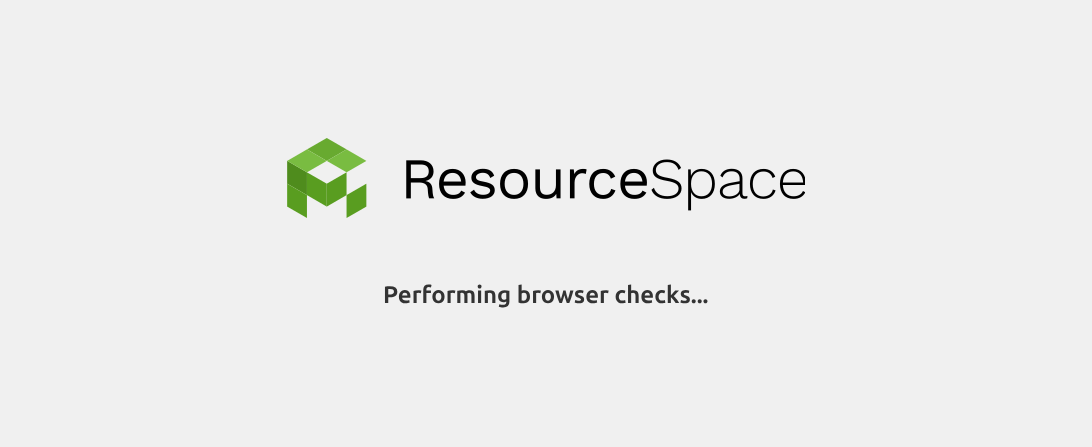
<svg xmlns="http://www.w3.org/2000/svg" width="1092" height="447">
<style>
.a{font:bold 24px Ubuntu;fill:#333}
</style>
<rect width="100%" height="100%" fill="#f0f0f0"/>
<image href="1.png" x="287" y="138" width="518" height="80"/>
<text class="a" x="383" y="303">Performing browser checks...</text>
</svg>
